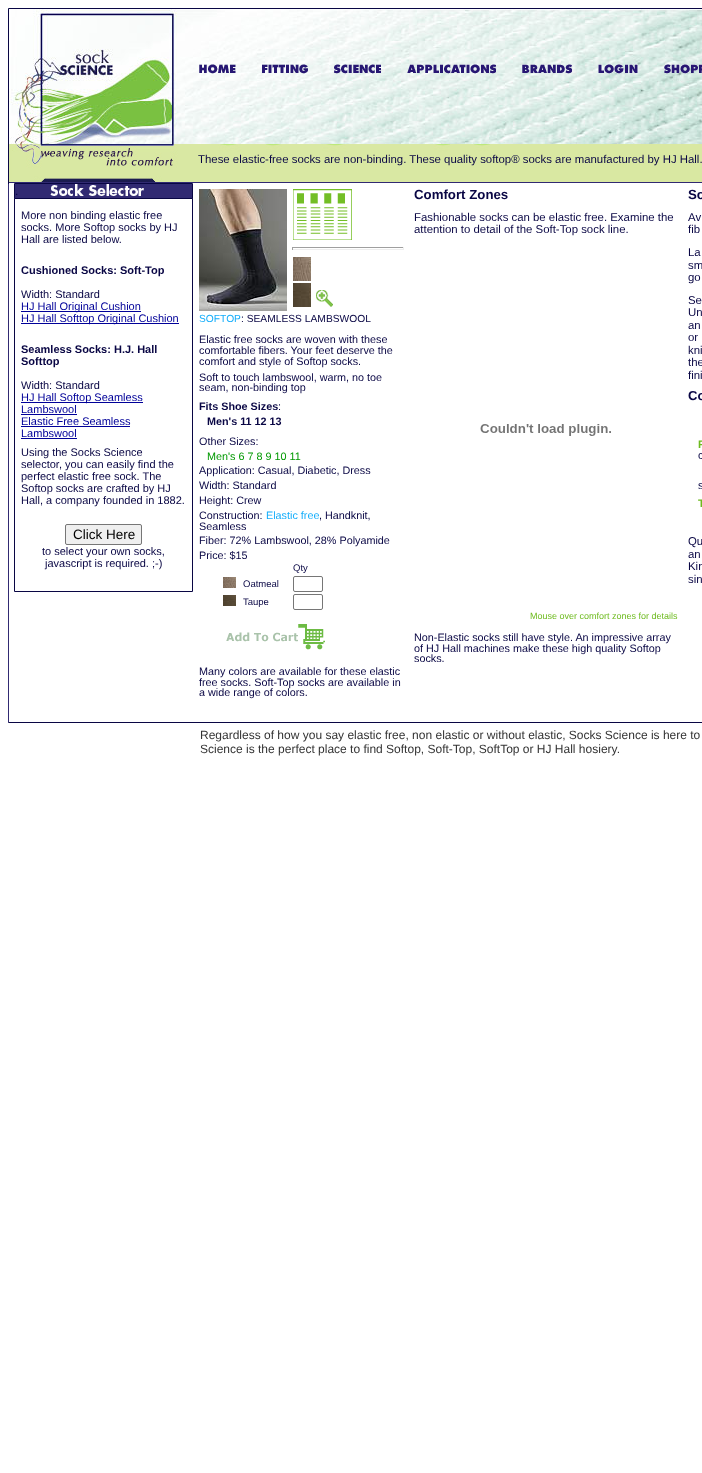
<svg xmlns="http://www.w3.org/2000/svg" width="702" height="1473">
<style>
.a{font:11.4px Liberation Sans;fill:#090644}
.b{font:12px Liberation Sans;fill:#090644}
.c{font:10.25px Liberation Sans;fill:#15aefb}
.d{font:10.25px Liberation Sans;fill:#090644}
.e{font:10.8px Liberation Sans;fill:#090644}
.f{font:bold 10.8px Liberation Sans;fill:#090644}
.g{font:10.8px Liberation Sans;fill:#090}
.h{font:10.8px Liberation Sans;fill:#15aefb}
.i{font:9.5px Liberation Sans;fill:#090644}
.j{font:bold 13.25px Liberation Sans;fill:#090644}
.k{font:9px Liberation Sans;fill:#6ebb1f}
.l{font:bold 13px Liberation Sans;fill:#090644}
.m{font:bold 11px Liberation Sans;fill:#6ebb1f}
.n{font:11px Liberation Sans;fill:#090644}
.o{font:bold 11px Liberation Sans;fill:#090644}
.p{font:11px Liberation Sans;fill:#009}
.q{font:13.5px Liberation Sans;fill:#000}
.r{font:12px Liberation Sans;fill:#333}
</style>
<rect width="100%" height="100%" fill="#fff"/>
<path fill="none" stroke="#090644" d="M8.5 8.5h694v714H8.5z"/>
<image href="1.png" x="9" y="9" width="693" height="135"/>
<image href="2.png" x="199" y="64" width="37" height="10"/>
<image href="3.png" x="262" y="64" width="46" height="10"/>
<image href="4.png" x="334" y="64" width="47" height="10"/>
<image href="5.png" x="407" y="64" width="89" height="10"/>
<image href="6.png" x="522" y="64" width="50" height="10"/>
<image href="7.png" x="598" y="64" width="40" height="10"/>
<image href="8.png" x="664" y="64" width="38" height="10"/>
<path fill="#d9e8a2" d="M9 144h693v38H9z"/>
<image href="9.png" x="12" y="144" width="478" height="38"/>
<path fill="#312a72" d="M9 182h693v1H9z"/>
<path fill="#312a72" d="M8 184h1v538H8z"/>
<image href="10.png" x="15" y="184" width="177" height="14"/>
<path fill="none" stroke="#090644" d="M14.5 198.5h178v393H14.5z"/>
<path fill="none" stroke="#090644" d="M14.5 183.5h178v15H14.5z"/>
<image href="11.png" x="199" y="189" width="88" height="122"/>
<image href="12.png" x="293" y="189" width="59" height="51"/>
<path fill="#9f9f9f" d="M292 247h112v1H292z"/>
<path fill="#eee" d="M403 247h1v3H403z"/>
<path fill="#eee" d="M292 249h112v1H292z"/>
<path fill="#9f9f9f" d="M292 247h1v3H292z"/>
<image href="13.png" x="293" y="257" width="18" height="24"/>
<image href="14.png" x="293" y="283" width="18" height="24"/>
<image href="15.png" x="316" y="290" width="17" height="17"/>
<image href="16.png" x="223" y="577" width="13" height="11"/>
<rect fill="none" stroke="#767676" x="293.5" y="576.5" width="29" height="15" rx="1.5"/>
<image href="17.png" x="223" y="595" width="13" height="11"/>
<rect fill="none" stroke="#767676" x="293.5" y="594.5" width="29" height="15" rx="1.5"/>
<image href="18.png" x="226" y="624" width="99" height="26"/>
<path fill="#009" d="M21 311h120v1H21z"/>
<path fill="#009" d="M21 323h158v1H21z"/>
<path fill="#009" d="M21 402h122v1H21z"/>
<path fill="#009" d="M21 414h56v1H21z"/>
<path fill="#009" d="M21 426h109v1H21z"/>
<path fill="#009" d="M21 438h56v1H21z"/>
<rect fill="#efefef" stroke="#767676" x="65.5" y="524.5" width="76" height="20" rx="1.5"/>
<image href="19.png" x="480" y="424" width="131" height="12"/>
<text class="a" x="198" y="163">These elastic-free socks are non-binding. These quality softop® socks are manufactured by HJ Hall.</text>
<text class="b" x="15" y="195">.</text>
<text class="c" x="199" y="322">SOFTOP</text>
<text class="d" x="241" y="322">: SEAMLESS LAMBSWOOL</text>
<text class="e" x="199" y="343">Elastic free socks are woven with these</text>
<text class="e" x="199" y="354">comfortable fibers. Your feet deserve the</text>
<text class="e" x="199" y="365">comfort and style of Softop socks.</text>
<text class="e" x="199" y="381">Soft to touch lambswool, warm, no toe</text>
<text class="e" x="199" y="391">seam, non-binding top</text>
<text class="f" x="199" y="410">Fits Shoe Sizes</text>
<text class="e" x="278" y="410">:</text>
<text class="f" x="207" y="425">Men's 11 12 13</text>
<text class="e" x="199" y="445">Other Sizes:</text>
<text class="g" x="207" y="460">Men's 6 7 8 9 10 11</text>
<text class="e" x="199" y="474">Application: Casual, Diabetic, Dress</text>
<text class="e" x="199" y="489">Width: Standard</text>
<text class="e" x="199" y="504">Height: Crew</text>
<text class="e" x="199" y="519">Construction:</text>
<text class="h" x="266" y="519">Elastic free</text>
<text class="e" x="319" y="519">, Handknit,</text>
<text class="e" x="199" y="530">Seamless</text>
<text class="e" x="199" y="544">Fiber: 72% Lambswool, 28% Polyamide</text>
<text class="e" x="199" y="559">Price: $15</text>
<text class="i" x="293" y="571">Qty</text>
<text class="i" x="243" y="587">Oatmeal</text>
<text class="i" x="243" y="605">Taupe</text>
<text class="e" x="199" y="675">Many colors are available for these elastic</text>
<text class="e" x="199" y="686">free socks. Soft-Top socks are available in</text>
<text class="e" x="199" y="696">a wide range of colors.</text>
<text class="j" x="414" y="199">Comfort Zones</text>
<text class="a" x="414" y="221">Fashionable socks can be elastic free. Examine the</text>
<text class="a" x="414" y="233">attention to detail of the Soft-Top sock line.</text>
<text class="k" x="530" y="619">Mouse over comfort zones for details</text>
<text class="e" x="414" y="641">Non-Elastic socks still have style. An impressive array</text>
<text class="e" x="414" y="652">of HJ Hall machines make these high quality Softop</text>
<text class="e" x="414" y="662">socks.</text>
<text class="j" x="688" y="199">So</text>
<text class="a" x="688" y="221">Av</text>
<text class="a" x="688" y="233">fib</text>
<text class="a" x="688" y="256">La</text>
<text class="a" x="688" y="269">sm</text>
<text class="a" x="688" y="281">go</text>
<text class="a" x="688" y="304">Se</text>
<text class="a" x="688" y="316">Un</text>
<text class="a" x="688" y="329">an</text>
<text class="a" x="688" y="341">or</text>
<text class="a" x="688" y="354">kni</text>
<text class="a" x="688" y="366">the</text>
<text class="a" x="688" y="379">fini</text>
<text class="l" x="688" y="400">Co</text>
<text class="m" x="698" y="448">F</text>
<text class="n" x="698" y="459">c</text>
<text class="n" x="698" y="489">s</text>
<text class="m" x="698" y="507">T</text>
<text class="a" x="688" y="545">Qu</text>
<text class="a" x="688" y="558">an</text>
<text class="a" x="688" y="570">Kin</text>
<text class="a" x="688" y="583">sin</text>
<text class="n" x="21" y="219">More non binding elastic free</text>
<text class="n" x="21" y="231">socks. More Softop socks by HJ</text>
<text class="n" x="21" y="243">Hall are listed below.</text>
<text class="o" x="21" y="274">Cushioned Socks: Soft-Top</text>
<text class="n" x="21" y="298">Width: Standard</text>
<text class="p" x="21" y="310">HJ Hall Original Cushion</text>
<text class="p" x="21" y="322">HJ Hall Softtop Original Cushion</text>
<text class="o" x="21" y="353">Seamless Socks: H.J. Hall</text>
<text class="o" x="21" y="365">Softtop</text>
<text class="n" x="21" y="389">Width: Standard</text>
<text class="p" x="21" y="401">HJ Hall Softop Seamless</text>
<text class="p" x="21" y="413">Lambswool</text>
<text class="p" x="21" y="425">Elastic Free Seamless</text>
<text class="p" x="21" y="437">Lambswool</text>
<text class="n" x="21" y="456">Using the Socks Science</text>
<text class="n" x="21" y="468">selector, you can easily find the</text>
<text class="n" x="21" y="480">perfect elastic free sock. The</text>
<text class="n" x="21" y="492">Softop socks are crafted by HJ</text>
<text class="n" x="21" y="504">Hall, a company founded in 1882.</text>
<text class="q" x="73" y="539">Click Here</text>
<text class="n" x="42" y="555">to select your own socks,</text>
<text class="n" x="45" y="567">javascript is required. ;-)</text>
<text class="r" x="200" y="739">Regardless of how you say elastic free, non elastic or without elastic, Socks Science is here to</text>
<text class="r" x="200" y="753">Science is the perfect place to find Softop, Soft-Top, SoftTop or HJ Hall hosiery.</text>
</svg>
